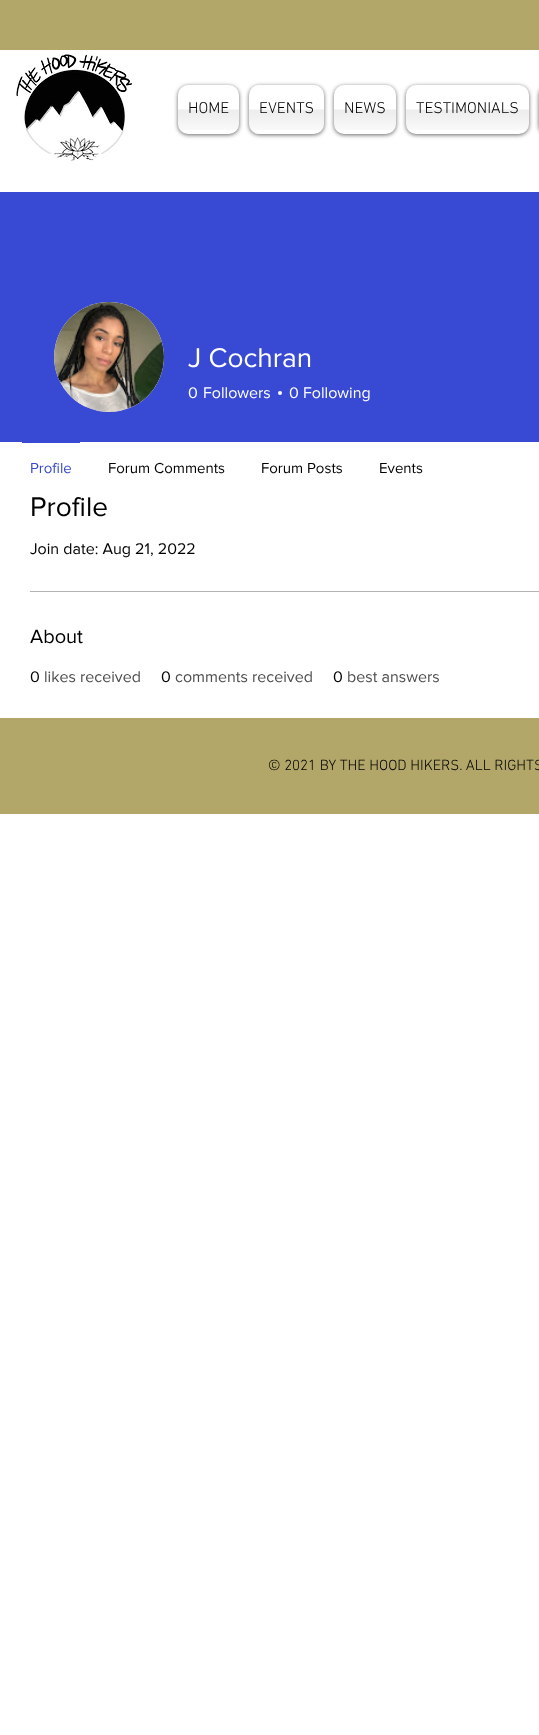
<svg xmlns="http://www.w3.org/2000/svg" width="539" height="1735">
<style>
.a{font:300 16px 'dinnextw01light';fill:#000}
.b{font:28px 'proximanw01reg';fill:#fff}
.c{font:16px 'proximanw01reg';fill:#fff}
.d{font:15px 'proximanw01reg';fill:#384ad3}
.e{font:15px 'proximanw01reg';fill:#000}
.f{font:28px 'proximanw01reg';fill:#000}
.g{font:16px 'proximanw01reg';fill:#000}
.h{font:20px 'proximanw01reg';fill:#000}
.i{font:16px 'proximanw01reg';fill:#4d4d4d}
.j{font:300 15px 'dinnextw01light';fill:#000}
</style>
<rect width="100%" height="100%" fill="#fff"/>
<path fill="#b2a769" d="M0 0h539v50H0z"/>
<image href="1.png" x="16" y="54" width="117" height="107"/>
<rect fill="#00000099" filter="blur(2px)" x="178" y="86" width="61" height="49" rx="10"/>
<rect fill="#fff" x="178" y="85" width="61" height="49" rx="10"/>
<image href="2.png" x="178" y="109" width="61" height="21"/>
<rect fill="#00000099" filter="blur(2px)" x="249" y="86" width="75" height="49" rx="10"/>
<rect fill="#fff" x="249" y="85" width="75" height="49" rx="10"/>
<image href="3.png" x="249" y="109" width="75" height="21"/>
<rect fill="#00000099" filter="blur(2px)" x="334" y="86" width="62" height="49" rx="10"/>
<rect fill="#fff" x="334" y="85" width="62" height="49" rx="10"/>
<image href="4.png" x="334" y="109" width="62" height="21"/>
<rect fill="#00000099" filter="blur(2px)" x="406" y="86" width="123" height="49" rx="10"/>
<rect fill="#fff" x="406" y="85" width="123" height="49" rx="10"/>
<image href="5.png" x="406" y="109" width="123" height="21"/>
<rect fill="#00000099" filter="blur(2px)" x="539" y="86" width="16" height="49" rx="10"/>
<path fill="#384ad3" d="M0 192h539v250H0z"/>
<circle fill="#d8d8d8" cx="109" cy="357" r="55"/>
<image href="6.png" x="54" y="302" width="110" height="110"/>
<circle fill="#fff" cx="280" cy="393" r="2"/>
<path fill="#384ad3" d="M22 442h58v1H22z"/>
<path fill="#b3b3b3" d="M30 591h509v1H30z"/>
<path fill="#b2a769" d="M0 718h539v96H0z"/>
<text class="a" x="188" y="113">HOME</text>
<text class="a" x="259" y="113">EVENTS</text>
<text class="a" x="344" y="113">NEWS</text>
<text class="a" x="416" y="113">TESTIMONIALS</text>
<text class="b" x="188" y="367">J Cochran</text>
<text class="c" x="188" y="398">0</text>
<text class="c" x="203" y="398">Followers</text>
<text class="c" x="289" y="398">0</text>
<text class="c" x="303" y="398">Following</text>
<text class="d" x="30" y="473">Profile</text>
<text class="e" x="108" y="473">Forum Comments</text>
<text class="e" x="261" y="473">Forum Posts</text>
<text class="e" x="379" y="473">Events</text>
<text class="f" x="30" y="516">Profile</text>
<text class="g" x="30" y="554">Join date: Aug 21, 2022</text>
<text class="h" x="30" y="643">About</text>
<text class="g" x="30" y="682">0</text>
<text class="i" x="44" y="682">likes received</text>
<text class="g" x="161" y="682">0</text>
<text class="i" x="175" y="682">comments received</text>
<text class="g" x="333" y="682">0</text>
<text class="i" x="347" y="682">best answers</text>
<text class="j" x="268" y="770">© 2021 BY THE HOOD HIKERS. ALL RIGHTS</text>
</svg>
